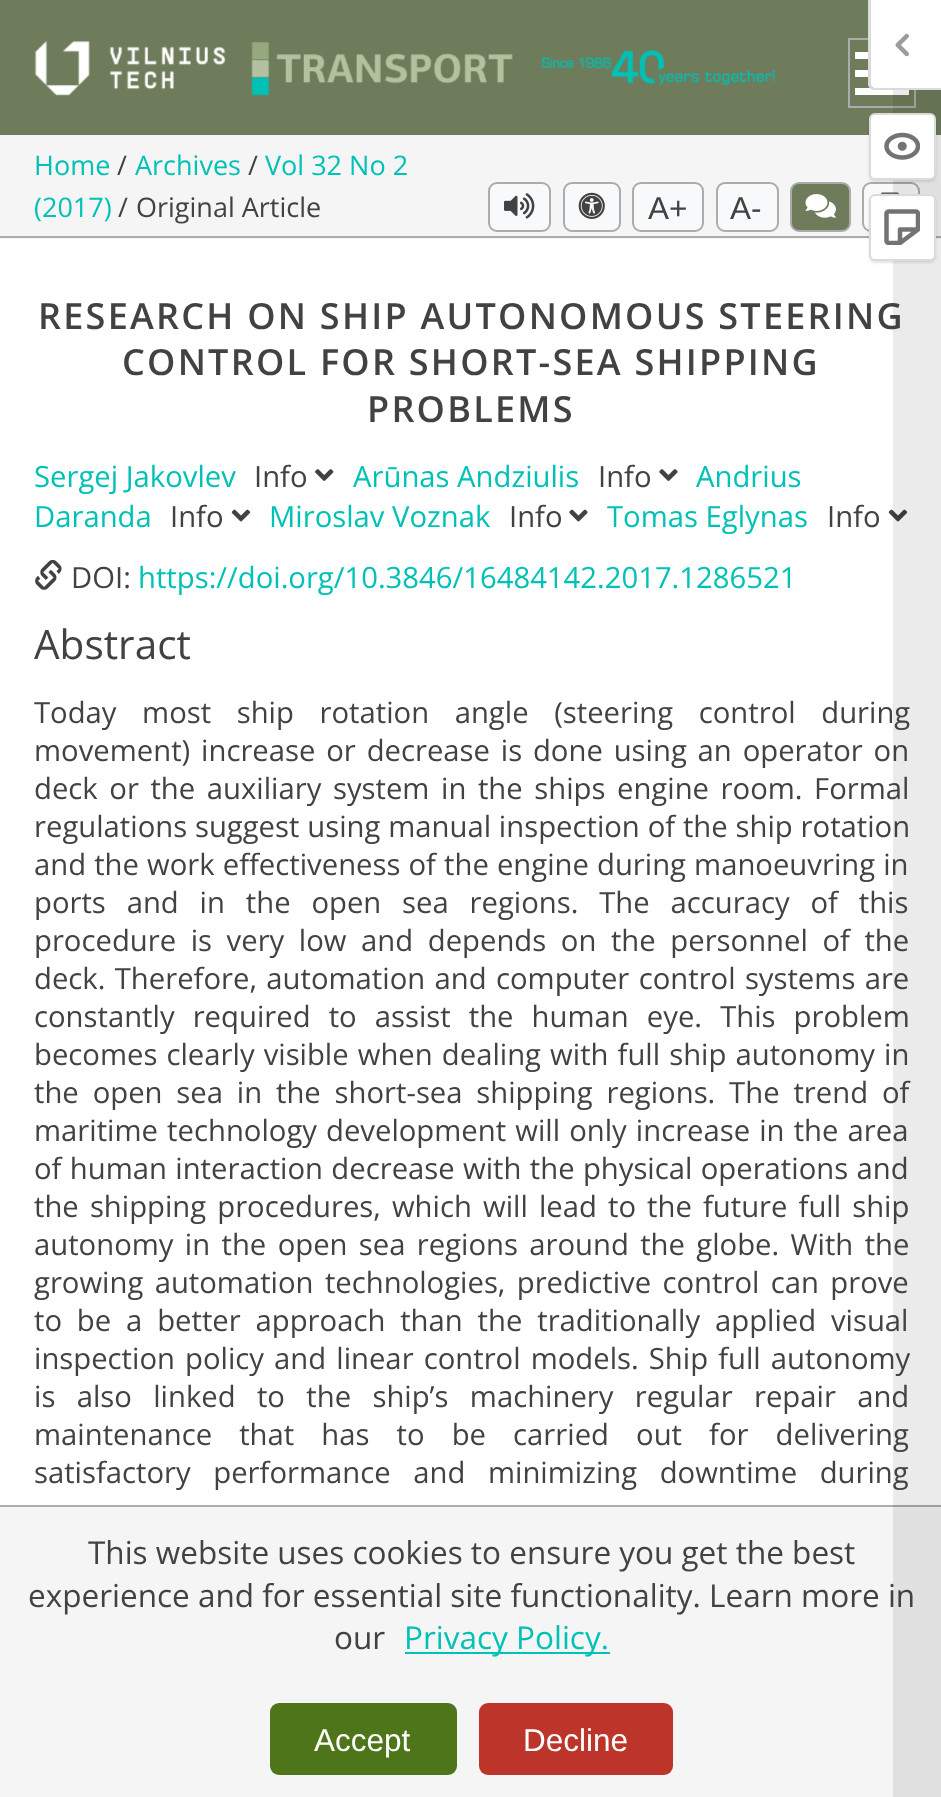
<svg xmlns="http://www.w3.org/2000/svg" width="941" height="1797">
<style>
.a{font:27px Open Sans;fill:#00c1b6}
.b{font:27px Open Sans;fill:#424242}
.c{font:31.5px Liberation Sans;fill:#424242}
.d{font:600 36px Open Sans;letter-spacing:2.25px;fill:#424242}
.e{font:29.25px Open Sans;fill:#00c1b6}
.f{font:29.25px Open Sans;fill:#424242}
.g{font:40.5px Open Sans;fill:#424242}
.h{font:31.5px Open Sans;fill:#424242}
.i{font:31.5px Open Sans;fill:#00c1b6}
.j{font:31.5px Liberation Sans;fill:#fff}
</style>
<rect width="100%" height="100%" fill="#fff"/>
<path fill="#6e7c5b" d="M0 0h941v135H0z"/>
<path fill="none" stroke="#ababab" stroke-width="2" d="M849 39h66v68H849z"/>
<path fill="#fff" d="M855 88h54v7H855z"/>
<path fill="#f5f5f5" d="M0 135h941v104H0z"/>
<path fill="#acacac" d="M0 236h941v2H0z"/>
<rect fill="#f8f9fa" stroke="#acacac" stroke-width="2" x="863" y="183" width="56" height="48" rx="8"/>
<image href="9.png" x="880" y="192" width="20" height="2"/>
<image href="11.png" x="888" y="509" width="20" height="13"/>
<path fill="#f5f5f5" d="M0 1507h941v290H0z"/>
<path fill="#acacac" d="M0 1505h941v2H0z"/>
<path fill="#00000014" d="M893 90h48v1707H893z"/>
<path fill="#fff" d="M871 0h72v88h-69c-1.5 0-3-1.5-3-3z"/>
<path fill="#dbdbdb" fill-rule="evenodd" d="M868 0h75v90h-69c-3 0-6-3-6-6zm3 0h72v88h-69c-2 0-3-2-3-4z"/>
<image href="1.png" x="895" y="33" width="14" height="24"/>
<rect fill="#0000001a" filter="blur(1px)" x="869" y="115" width="67" height="67" rx="6"/>
<rect fill="#fff" stroke="#dbdbdb" stroke-width="2" x="870" y="114" width="65" height="65" rx="5"/>
<image href="2.png" x="884" y="132" width="36" height="28"/>
<rect fill="#0000001a" filter="blur(1px)" x="869" y="196" width="67" height="67" rx="6"/>
<rect fill="#fff" stroke="#dbdbdb" stroke-width="2" x="870" y="195" width="65" height="65" rx="5"/>
<image href="3.png" x="884" y="209" width="36" height="36"/>
<image href="4.png" x="34" y="41" width="192" height="55"/>
<image href="5.png" x="251" y="42" width="524" height="54"/>
<path fill="#fff" d="M855 52h13v7H855z"/>
<path fill="#fff" d="M855 70h13v7H855z"/>
<rect fill="#f8f9fa" stroke="#acacac" stroke-width="2" x="489" y="183" width="61" height="48" rx="8"/>
<image href="6.png" x="504" y="193" width="31" height="26"/>
<rect fill="#f8f9fa" stroke="#acacac" stroke-width="2" x="564" y="183" width="56" height="48" rx="8"/>
<image href="7.png" x="578" y="192" width="27" height="27"/>
<rect fill="#f8f9fa" stroke="#acacac" stroke-width="2" x="633" y="183" width="70" height="48" rx="8"/>
<rect fill="#f8f9fa" stroke="#acacac" stroke-width="2" x="717" y="183" width="61" height="48" rx="8"/>
<rect fill="#6e7c5b" stroke="#acacac" stroke-width="2" x="791" y="183" width="59" height="48" rx="8"/>
<image href="8.png" x="805" y="194" width="31" height="24"/>
<image href="10.png" x="315" y="469" width="19" height="12"/>
<image href="11.png" x="231" y="509" width="20" height="13"/>
<image href="12.png" x="659" y="469" width="19" height="12"/>
<image href="13.png" x="569" y="509" width="19" height="13"/>
<image href="14.png" x="35" y="559" width="27" height="31"/>
<path fill="#00c1b6" d="M405 1652h205v2H405z"/>
<rect fill="#4e751a" x="270" y="1703" width="187" height="72" rx="9"/>
<rect fill="#bc342a" x="479" y="1703" width="194" height="72" rx="9"/>
<text class="a" x="34" y="175">Home</text>
<text class="b" x="117" y="175">/</text>
<text class="a" x="135" y="175">Archives</text>
<text class="b" x="248" y="175">/</text>
<text class="a" x="265" y="175">Vol 32 No 2</text>
<text class="a" x="34" y="217">(2017)</text>
<text class="b" x="118" y="217">/</text>
<text class="b" x="136" y="217">Original Article</text>
<text class="c" x="648" y="219">A+</text>
<text class="c" x="730" y="219">A-</text>
<text class="d" x="38" y="329">RESEARCH ON SHIP AUTONOMOUS STEERING</text>
<text class="d" x="122" y="375">CONTROL FOR SHORT-SEA SHIPPING</text>
<text class="d" x="367" y="422">PROBLEMS</text>
<text class="e" x="34" y="487">Sergej Jakovlev</text>
<text class="f" x="254" y="487">Info</text>
<text class="e" x="696" y="487">Andrius</text>
<text class="e" x="34" y="527">Daranda</text>
<text class="f" x="170" y="527">Info</text>
<text class="e" x="353" y="487">Arūnas Andziulis</text>
<text class="f" x="598" y="487">Info</text>
<text class="e" x="269" y="527">Miroslav Voznak</text>
<text class="f" x="509" y="527">Info</text>
<text class="e" x="607" y="527">Tomas Eglynas</text>
<text class="f" x="827" y="527">Info</text>
<text class="f" x="71" y="588">DOI:</text>
<text class="e" x="138" y="588">https://doi.org/10.3846/16484142.2017.1286521</text>
<text class="g" x="34" y="659">Abstract</text>
<text class="f" x="34" y="723" word-spacing="18">Today most ship rotation angle (steering control during</text>
<text class="f" x="34" y="761" word-spacing="3.25">movement) increase or decrease is done using an operator on</text>
<text class="f" x="34" y="799" word-spacing="4">deck or the auxiliary system in the ships engine room. Formal</text>
<text class="f" x="34" y="837" word-spacing="0.25">regulations suggest using manual inspection of the ship rotation</text>
<text class="f" x="34" y="875" word-spacing="0.5">and the work effectiveness of the engine during manoeuvring in</text>
<text class="f" x="34" y="913" word-spacing="13.25">ports and in the open sea regions. The accuracy of this</text>
<text class="f" x="34" y="951" word-spacing="7">procedure is very low and depends on the personnel of the</text>
<text class="f" x="34" y="989" word-spacing="1.75">deck. Therefore, automation and computer control systems are</text>
<text class="f" x="34" y="1027" word-spacing="10.5">constantly required to assist the human eye. This problem</text>
<text class="f" x="34" y="1065" word-spacing="1.5">becomes clearly visible when dealing with full ship autonomy in</text>
<text class="f" x="34" y="1103" word-spacing="6.25">the open sea in the short-sea shipping regions. The trend of</text>
<text class="f" x="34" y="1141" word-spacing="1.5">maritime technology development will only increase in the area</text>
<text class="f" x="34" y="1179" word-spacing="0.75">of human interaction decrease with the physical operations and</text>
<text class="f" x="34" y="1217" word-spacing="3.5">the shipping procedures, which will lead to the future full ship</text>
<text class="f" x="34" y="1255" word-spacing="3.75">autonomy in the open sea regions around the globe. With the</text>
<text class="f" x="34" y="1293" word-spacing="3.75">growing automation technologies, predictive control can prove</text>
<text class="f" x="34" y="1331" word-spacing="7.25">to be a better approach than the traditionally applied visual</text>
<text class="f" x="34" y="1369" word-spacing="2.5">inspection policy and linear control models. Ship full autonomy</text>
<text class="f" x="34" y="1407" word-spacing="13.75">is also linked to the ship’s machinery regular repair and</text>
<text class="f" x="34" y="1445" word-spacing="19.5">maintenance that has to be carried out for delivering</text>
<text class="f" x="34" y="1483" word-spacing="15">satisfactory performance and minimizing downtime during</text>
<text class="h" x="88" y="1564">This website uses cookies to ensure you get the best</text>
<text class="h" x="28" y="1607">experience and for essential site functionality. Learn more in</text>
<text class="h" x="334" y="1649">our</text>
<text class="i" x="404" y="1649">Privacy Policy.</text>
<text class="j" x="314" y="1751">Accept</text>
<text class="j" x="523" y="1751">Decline</text>
</svg>
